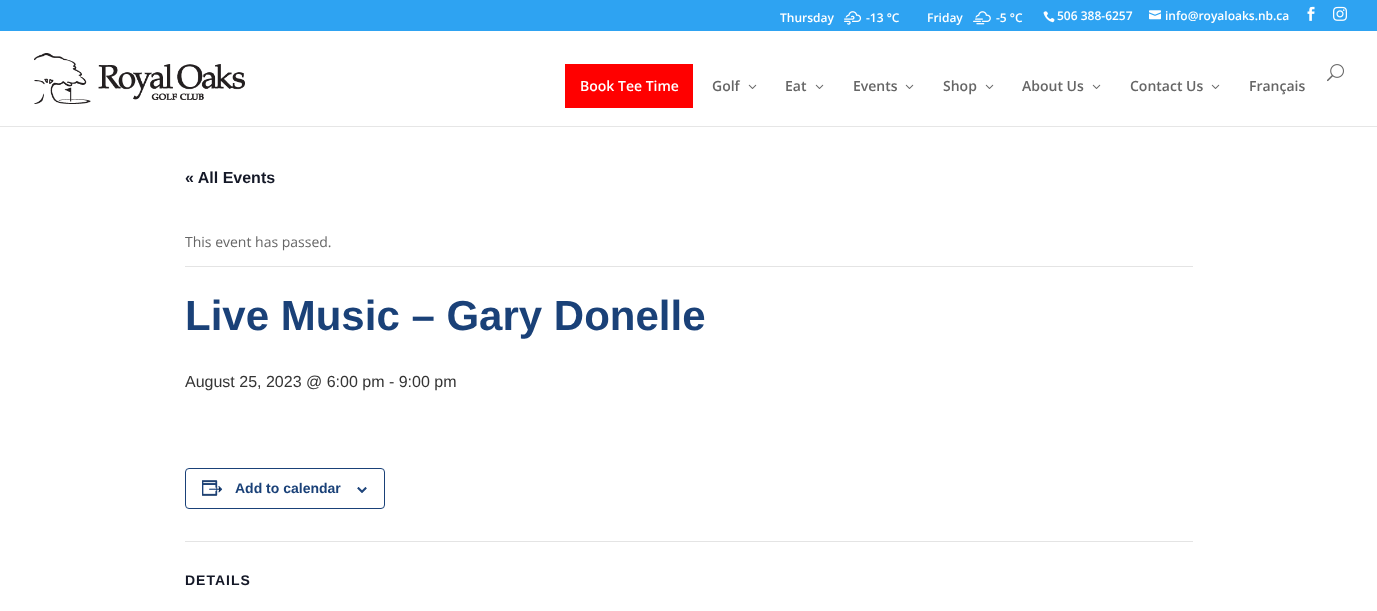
<svg xmlns="http://www.w3.org/2000/svg" width="1377" height="611">
<style>
.a{font:600 12px Open Sans;fill:#fff}
.b{font:600 14px Open Sans;fill:#fff}
.c{font:600 14px Open Sans;fill:#666}
.d{font:bold 16px Liberation Sans;fill:#141827}
.e{font:14px Open Sans;fill:#666}
.f{font:bold 42px Liberation Sans;fill:#1a4178}
.g{font:16px Liberation Sans;fill:#353535}
.h{font:bold 14px Liberation Sans;fill:#1a4178}
.i{font:bold 14px Liberation Sans;letter-spacing:1px;fill:#141827}
</style>
<rect width="100%" height="100%" fill="#fff"/>
<path fill="#2ea3f2" d="M0 0h1377v31H0z"/>
<image href="1.png" x="844" y="11" width="18" height="14"/>
<image href="2.png" x="973" y="11" width="18" height="14"/>
<image href="3.png" x="1043" y="11" width="12" height="12"/>
<image href="4.png" x="1149" y="10" width="12" height="10"/>
<image href="5.png" x="1307" y="6" width="8" height="15"/>
<image href="6.png" x="1333" y="6" width="14" height="15"/>
<path fill="#e6e6e6" d="M0 126h1377v1H0z"/>
<image href="7.png" x="34" y="53" width="211" height="51"/>
<image href="8.png" x="1327" y="64" width="17" height="18"/>
<path fill="#f00" d="M565 64h128v44H565z"/>
<image href="9.png" x="748" y="84" width="9" height="5"/>
<image href="9.png" x="815" y="84" width="9" height="5"/>
<image href="9.png" x="905" y="84" width="9" height="5"/>
<image href="9.png" x="985" y="84" width="9" height="5"/>
<image href="9.png" x="1092" y="84" width="9" height="5"/>
<image href="9.png" x="1211" y="84" width="9" height="5"/>
<path fill="#e4e4e4" d="M185 266h1008v1H185z"/>
<rect fill="none" stroke="#1a4178" x="185.5" y="468.5" width="199" height="40" rx="3.5"/>
<image href="10.png" x="202" y="480" width="21" height="16"/>
<image href="11.png" x="357" y="487" width="10" height="6"/>
<path fill="#e4e4e4" d="M185 541h1008v1H185z"/>
<text class="a" x="780" y="22">Thursday</text>
<text class="a" x="866" y="22">-13 °C</text>
<text class="a" x="927" y="22">Friday</text>
<text class="a" x="996" y="22">-5 °C</text>
<text class="a" x="1057" y="20">506 388-6257</text>
<text class="a" x="1165" y="20">info@royaloaks.nb.ca</text>
<text class="b" x="580" y="91">Book Tee Time</text>
<text class="c" x="712" y="91">Golf</text>
<text class="c" x="785" y="91">Eat</text>
<text class="c" x="853" y="91">Events</text>
<text class="c" x="943" y="91">Shop</text>
<text class="c" x="1022" y="91">About Us</text>
<text class="c" x="1130" y="91">Contact Us</text>
<text class="c" x="1249" y="91">Français</text>
<text class="d" x="185" y="183">« All Events</text>
<text class="e" x="185" y="247">This event has passed.</text>
<text class="f" x="185" y="330">Live Music – Gary Donelle</text>
<text class="g" x="185" y="387">August 25, 2023 @ 6:00 pm - 9:00 pm</text>
<text class="h" x="235" y="493">Add to calendar</text>
<text class="i" x="185" y="585">DETAILS</text>
</svg>
